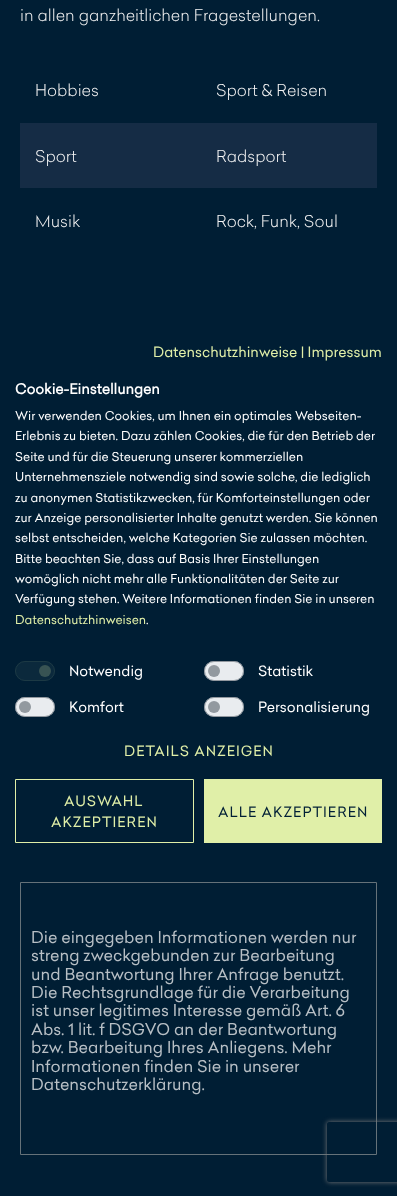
<svg xmlns="http://www.w3.org/2000/svg" width="397" height="1196">
<style>
.a{font:300 16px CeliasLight;fill:#f5f5f5}
.b{font:16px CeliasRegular;fill:#b7bfc5}
.c{font:14px CeliasRegular;fill:#e0efa8}
.d{font:bold 14px CeliasRegular;fill:#fff}
.e{font:12px CeliasRegular;fill:#fff}
.f{font:12px CeliasRegular;fill:#e0efa8}
.g{font:14px CeliasRegular;fill:#fff}
.h{font:14px CeliasRegular;letter-spacing:1px;fill:#e0efa8}
.i{font:14px CeliasRegular;letter-spacing:1px;fill:#001f36}
</style>
<defs>
<clipPath id="clip1"><path d="M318 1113h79v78h-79zm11 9h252c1 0 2 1 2 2v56c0 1-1 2-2 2h-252c-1 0-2-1-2-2v-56c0-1 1-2 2-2z" clip-rule="evenodd"/></clipPath>
</defs>
<rect width="100%" height="100%" fill="#001e34"/>
<path fill="#152c45" d="M20 123h357v65H20z"/>
<path fill="none" stroke="#657279" d="M20.5 882.5h356v272H20.5z"/>
<rect fill="#0b293c" x="15" y="661" width="40" height="20" rx="10"/>
<circle fill="#385353" cx="45" cy="671" r="6"/>
<rect fill="none" stroke="#1c3944" x="15.5" y="661.5" width="39" height="19" rx="9.5"/>
<rect fill="#e9ecef" x="204" y="661" width="40" height="20" rx="10"/>
<circle fill="#92999f" cx="214" cy="671" r="6"/>
<rect fill="none" stroke="#6c757db3" x="204.5" y="661.5" width="39" height="19" rx="9.5"/>
<rect fill="#e9ecef" x="15" y="697" width="40" height="20" rx="10"/>
<circle fill="#92999f" cx="25" cy="707" r="6"/>
<rect fill="none" stroke="#6c757db3" x="15.5" y="697.5" width="39" height="19" rx="9.5"/>
<rect fill="#e9ecef" x="204" y="697" width="40" height="20" rx="10"/>
<circle fill="#92999f" cx="214" cy="707" r="6"/>
<rect fill="none" stroke="#6c757db3" x="204.5" y="697.5" width="39" height="19" rx="9.5"/>
<path fill="none" stroke="#e0efa8" d="M15.5 779.5h178v63H15.5z"/>
<path fill="#e0efa8" d="M204 779h178v64H204z"/>
<g clip-path="url(#clip1)">
<rect fill="#7b7b7b" filter="blur(2.5px)" x="327" y="1122" width="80" height="60" rx="2"/>
</g>
<text class="a" x="20" y="21">in allen ganzheitlichen Fragestellungen.</text>
<text class="a" x="35" y="96">Hobbies</text>
<text class="a" x="216" y="96">Sport &amp; Reisen</text>
<text class="a" x="35" y="162">Sport</text>
<text class="a" x="216" y="162">Radsport</text>
<text class="a" x="35" y="227">Musik</text>
<text class="a" x="216" y="227">Rock, Funk, Soul</text>
<text class="b" x="31" y="943">Die eingegeben Informationen werden nur</text>
<text class="b" x="31" y="961">streng zweckgebunden zur Bearbeitung</text>
<text class="b" x="31" y="980">und Beantwortung Ihrer Anfrage benutzt.</text>
<text class="b" x="31" y="998">Die Rechtsgrundlage für die Verarbeitung</text>
<text class="b" x="31" y="1016">ist unser legitimes Interesse gemäß Art. 6</text>
<text class="b" x="31" y="1035">Abs. 1 lit. f DSGVO an der Beantwortung</text>
<text class="b" x="31" y="1053">bzw. Bearbeitung Ihres Anliegens. Mehr</text>
<text class="b" x="31" y="1072">Informationen finden Sie in unserer</text>
<text class="b" x="31" y="1090">Datenschutzerklärung.</text>
<text class="c" x="153" y="357">Datenschutzhinweise | Impressum</text>
<text class="d" x="15" y="394">Cookie-Einstellungen</text>
<text class="e" x="15" y="420">Wir verwenden Cookies, um Ihnen ein optimales Webseiten-</text>
<text class="e" x="15" y="440">Erlebnis zu bieten. Dazu zählen Cookies, die für den Betrieb der</text>
<text class="e" x="15" y="461">Seite und für die Steuerung unserer kommerziellen</text>
<text class="e" x="15" y="481">Unternehmensziele notwendig sind sowie solche, die lediglich</text>
<text class="e" x="15" y="502">zu anonymen Statistikzwecken, für Komforteinstellungen oder</text>
<text class="e" x="15" y="522">zur Anzeige personalisierter Inhalte genutzt werden. Sie können</text>
<text class="e" x="15" y="542">selbst entscheiden, welche Kategorien Sie zulassen möchten.</text>
<text class="e" x="15" y="563">Bitte beachten Sie, dass auf Basis Ihrer Einstellungen</text>
<text class="e" x="15" y="583">womöglich nicht mehr alle Funktionalitäten der Seite zur</text>
<text class="e" x="15" y="603">Verfügung stehen. Weitere Informationen finden Sie in unseren</text>
<text class="f" x="15" y="624">Datenschutzhinweisen</text>
<text class="e" x="146" y="624">.</text>
<text class="g" x="69" y="676">Notwendig</text>
<text class="g" x="258" y="676">Statistik</text>
<text class="g" x="69" y="712">Komfort</text>
<text class="g" x="258" y="712">Personalisierung</text>
<text class="h" x="124" y="756">DETAILS ANZEIGEN</text>
<text class="h" x="64" y="806">AUSWAHL</text>
<text class="h" x="51" y="827">AKZEPTIEREN</text>
<text class="i" x="218" y="817">ALLE AKZEPTIEREN</text>
</svg>
